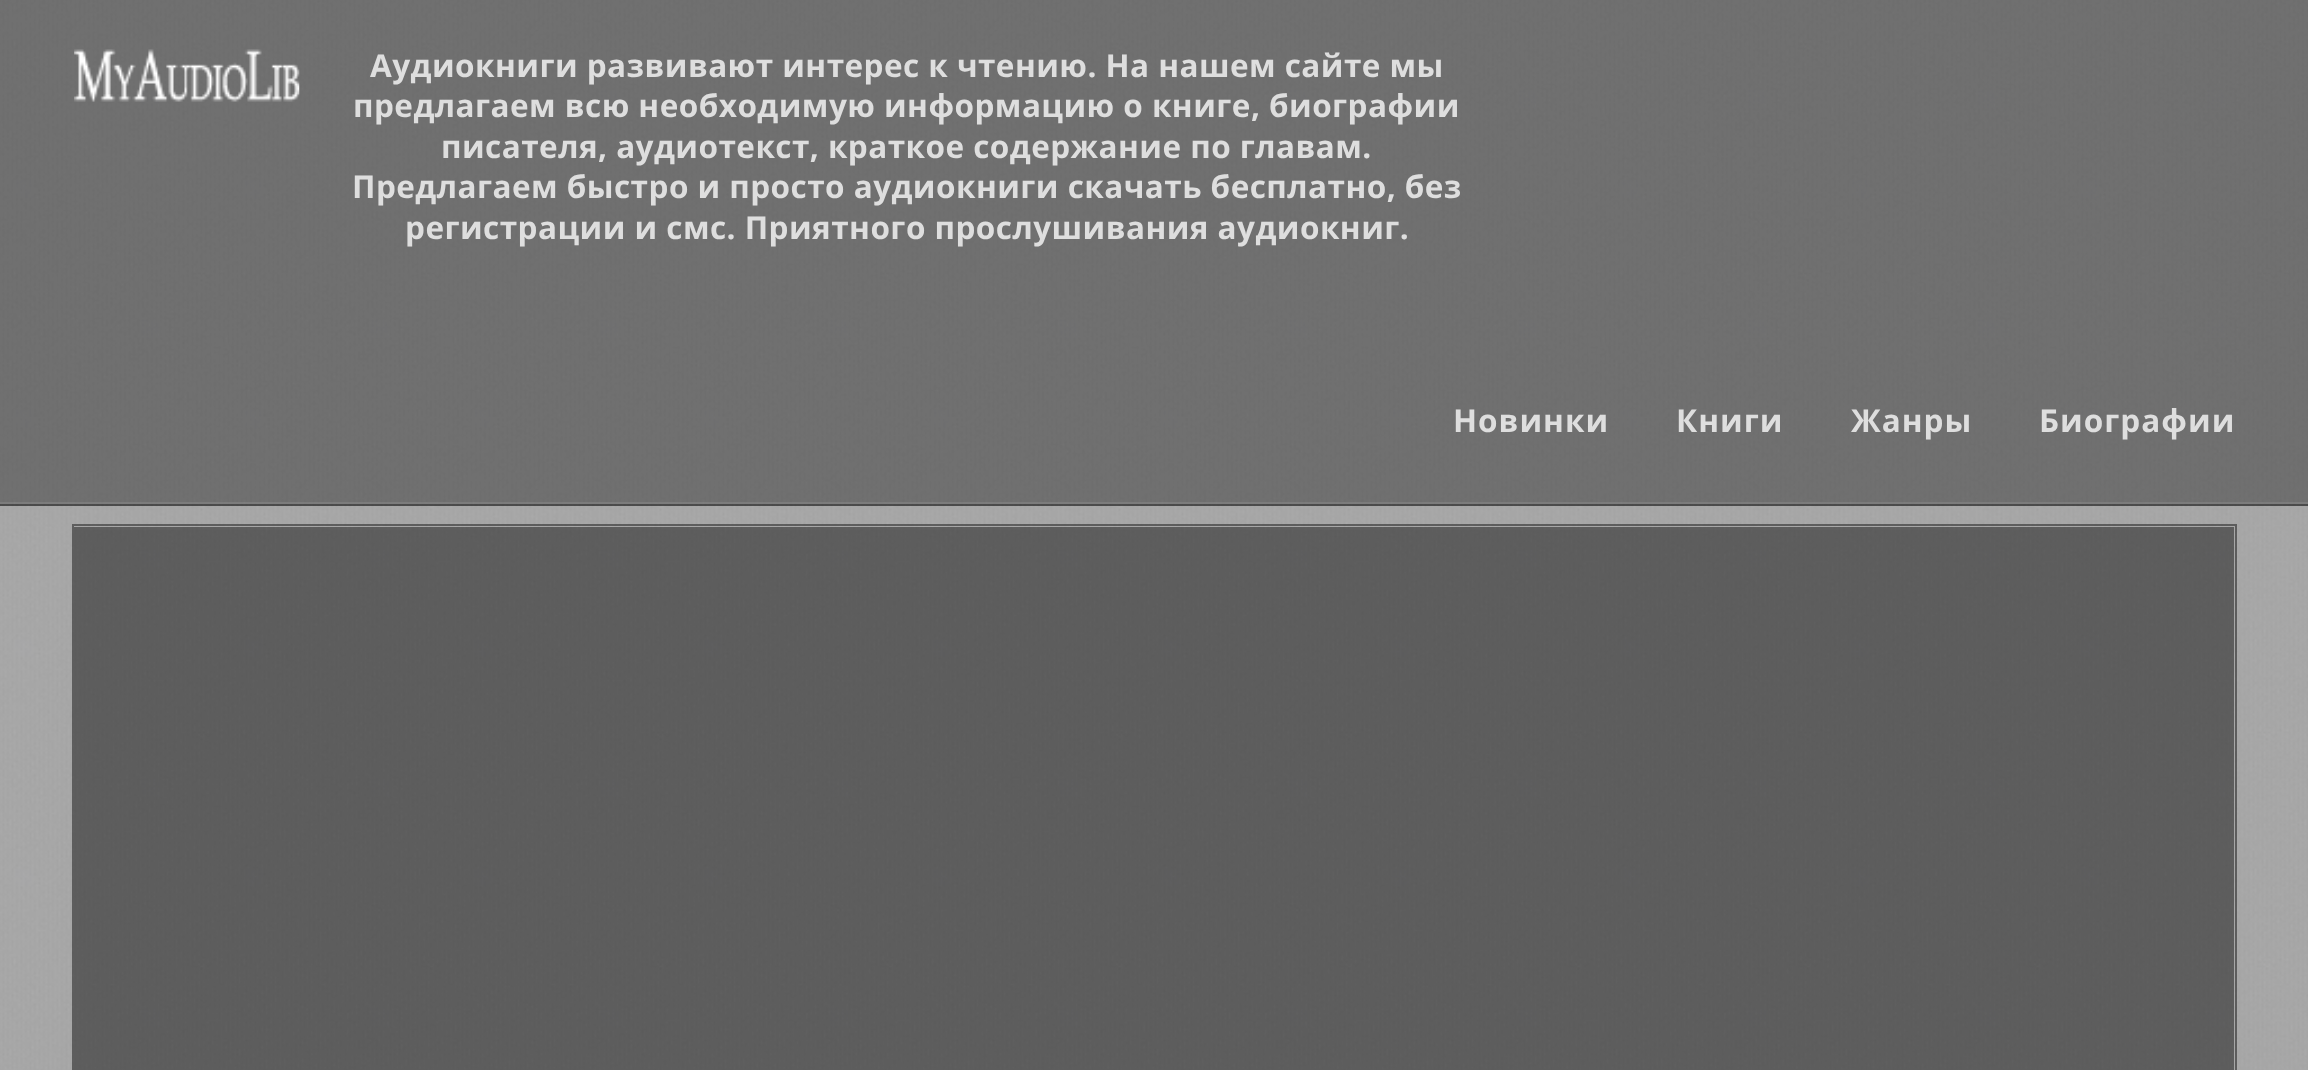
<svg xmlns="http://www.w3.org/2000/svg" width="2308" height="1070">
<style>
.a{font:bold 31.5px Open Sans;letter-spacing:0.45px;fill:#dedede}
.b{font:bold 31.5px Open Sans;letter-spacing:1px;fill:#dedede}
</style>
<rect width="100%" height="100%" fill="#fff"/>
<image href="1.png" x="0" y="0" width="2308" height="1070"/>
<path fill="#0000008c" d="M0 504v2h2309v-504h-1v502z"/>
<path fill="#00000054" d="M0 0h2308v504H0z"/>
<path fill="#ffffff17" d="M0 502h2308v2H0z"/>
<image href="2.png" x="74" y="49" width="226" height="53"/>
<path fill="none" stroke="#00000070" stroke-width="2" d="M73 525h2163v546H73z"/>
<path fill="#00000070" d="M74 527h2160v543H74z"/>
<text class="a" x="370" y="77">Аудиокниги развивают интерес к чтению. На нашем сайте мы</text>
<text class="a" x="353" y="117">предлагаем всю необходимую информацию о книге, биографии</text>
<text class="a" x="441" y="158">писателя, аудиотекст, краткое содержание по главам.</text>
<text class="a" x="352" y="198">Предлагаем быстро и просто аудиокниги скачать бесплатно, без</text>
<text class="a" x="405" y="239">регистрации и смс. Приятного прослушивания аудиокниг.</text>
<text class="b" x="1453" y="432">Новинки</text>
<text class="b" x="1676" y="432">Книги</text>
<text class="b" x="1851" y="432">Жанры</text>
<text class="b" x="2039" y="432">Биографии</text>
</svg>
